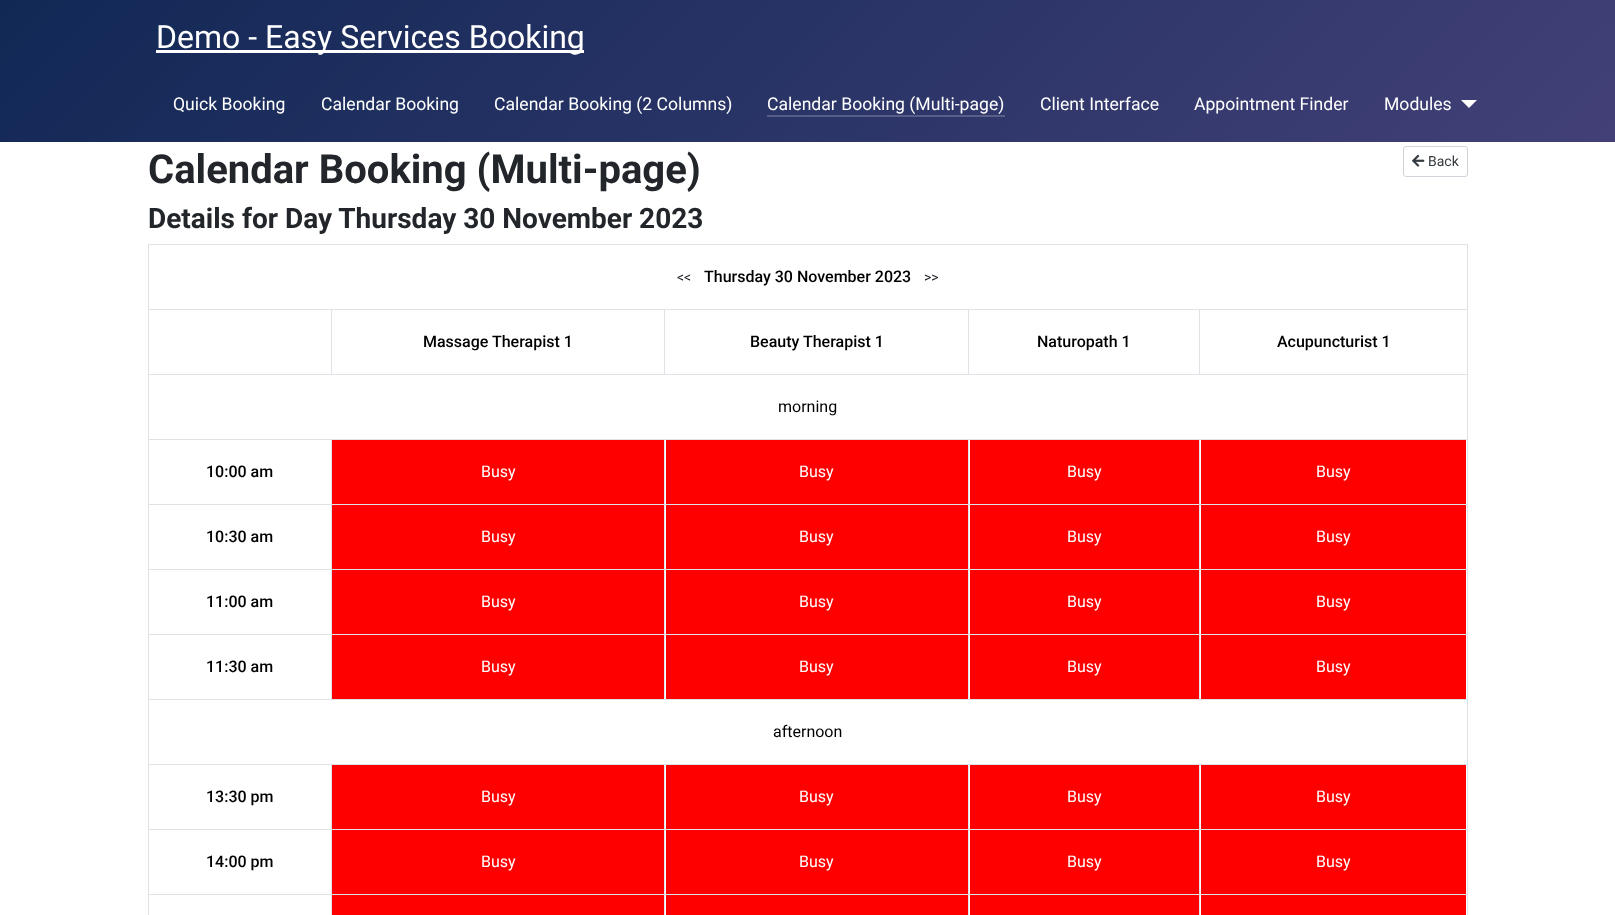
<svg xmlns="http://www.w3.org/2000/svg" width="1615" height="915">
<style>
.a{font:32px Roboto;fill:#fff}
.b{font:17.6px Roboto;fill:#fff}
.c{font:bold 40px Roboto;fill:#22262a}
.d{font:14px Roboto;fill:#353b41}
.e{font:bold 28px Roboto;fill:#22262a}
.f{font:14px Roboto;fill:#22262a}
.g{font:500 16px Roboto;fill:#000}
.h{font:16px Roboto;fill:#000}
.i{font:16px Roboto;fill:#fff}
</style>
<defs>
<linearGradient id="g1" gradientUnits="userSpaceOnUse" x1="368" y1="-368" x2="1247" y2="510"><stop offset="0" stop-color="#112855"/><stop offset="1" stop-color="#424077"/></linearGradient>
<linearGradient id="g2" gradientUnits="userSpaceOnUse" x1="368" y1="-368" x2="1247" y2="510"><stop offset="0" stop-color="#415377"/><stop offset="1" stop-color="#686692"/></linearGradient>
</defs>
<rect width="100%" height="100%" fill="#fff"/>
<path fill="url(#g1)" d="M0 0h1615v142H0z"/>
<path fill="url(#g2)" d="M767 115h238v2H767z"/>
<path fill="#fff" d="M156 50h428v3H156z"/>
<path fill="#fff" d="M1461 100h16l-8 8z"/>
<rect fill="none" stroke="#ced4da" x="1403.5" y="146.5" width="64" height="30" rx="2.5"/>
<image href="1.png" x="1412" y="154" width="13" height="13"/>
<path fill="#dfe3e7" d="M148 894h1320v1H148z"/>
<path fill="#dfe3e7" d="M148 244h1320v1H148z"/>
<path fill="#dfe3e7" d="M148 309h1320v1H148z"/>
<path fill="#dfe3e7" d="M148 374h1320v1H148z"/>
<path fill="#dfe3e7" d="M148 439h1320v1H148z"/>
<path fill="#dfe3e7" d="M148 504h1320v1H148z"/>
<path fill="#dfe3e7" d="M148 569h1320v1H148z"/>
<path fill="#dfe3e7" d="M148 634h1320v1H148z"/>
<path fill="#dfe3e7" d="M148 699h1320v1H148z"/>
<path fill="#dfe3e7" d="M148 764h1320v1H148z"/>
<path fill="#dfe3e7" d="M148 829h1320v1H148z"/>
<path fill="#dfe3e7" d="M148 244h1v671H148z"/>
<path fill="#f00" d="M332 895h332v20H332z"/>
<path fill="#dfe3e7" d="M331 764h1v151H331z"/>
<path fill="#f00" d="M666 895h302v20H666z"/>
<path fill="#dfe3e7" d="M664 764h1v151H664z"/>
<path fill="#f00" d="M970 895h229v20H970z"/>
<path fill="#dfe3e7" d="M968 764h1v151H968z"/>
<path fill="#f00" d="M1201 895h265v20H1201z"/>
<path fill="#dfe3e7" d="M1467 244h1v671H1467z"/>
<path fill="#dfe3e7" d="M1199 764h1v151H1199z"/>
<path fill="#dfe3e7" d="M331 309h1v66H331z"/>
<path fill="#dfe3e7" d="M664 309h1v66H664z"/>
<path fill="#dfe3e7" d="M968 309h1v66H968z"/>
<path fill="#dfe3e7" d="M1199 309h1v66H1199z"/>
<path fill="#f00" d="M332 440h332v64H332z"/>
<path fill="#f00" d="M666 440h302v64H666z"/>
<path fill="#f00" d="M970 440h229v64H970z"/>
<path fill="#f00" d="M1201 440h265v64H1201z"/>
<path fill="#f00" d="M332 505h332v64H332z"/>
<path fill="#f00" d="M666 505h302v64H666z"/>
<path fill="#f00" d="M970 505h229v64H970z"/>
<path fill="#f00" d="M1201 505h265v64H1201z"/>
<path fill="#f00" d="M332 570h332v64H332z"/>
<path fill="#f00" d="M666 570h302v64H666z"/>
<path fill="#f00" d="M970 570h229v64H970z"/>
<path fill="#f00" d="M1201 570h265v64H1201z"/>
<path fill="#f00" d="M332 635h332v64H332z"/>
<path fill="#dfe3e7" d="M331 439h1v261H331z"/>
<path fill="#f00" d="M666 635h302v64H666z"/>
<path fill="#dfe3e7" d="M664 439h1v261H664z"/>
<path fill="#f00" d="M970 635h229v64H970z"/>
<path fill="#dfe3e7" d="M968 439h1v261H968z"/>
<path fill="#f00" d="M1201 635h265v64H1201z"/>
<path fill="#dfe3e7" d="M1199 439h1v261H1199z"/>
<path fill="#f00" d="M332 765h332v64H332z"/>
<path fill="#f00" d="M666 765h302v64H666z"/>
<path fill="#f00" d="M970 765h229v64H970z"/>
<path fill="#f00" d="M1201 765h265v64H1201z"/>
<path fill="#f00" d="M332 830h332v64H332z"/>
<path fill="#f00" d="M666 830h302v64H666z"/>
<path fill="#f00" d="M970 830h229v64H970z"/>
<path fill="#f00" d="M1201 830h265v64H1201z"/>
<text class="a" x="156" y="48">Demo - Easy Services Booking</text>
<text class="b" x="173" y="110">Quick Booking</text>
<text class="b" x="321" y="110">Calendar Booking</text>
<text class="b" x="494" y="110">Calendar Booking (2 Columns)</text>
<text class="b" x="767" y="110">Calendar Booking (Multi-page)</text>
<text class="b" x="1040" y="110">Client Interface</text>
<text class="b" x="1194" y="110">Appointment Finder</text>
<text class="b" x="1384" y="110">Modules</text>
<text class="c" x="148" y="183">Calendar Booking (Multi-page)</text>
<text class="d" x="1428" y="166">Back</text>
<text class="e" x="148" y="228">Details for Day Thursday 30 November 2023</text>
<text class="f" x="677" y="282">&lt;&lt;</text>
<text class="g" x="704" y="282">Thursday 30 November 2023</text>
<text class="f" x="924" y="282">&gt;&gt;</text>
<text class="g" x="423" y="347">Massage Therapist 1</text>
<text class="g" x="750" y="347">Beauty Therapist 1</text>
<text class="g" x="1037" y="347">Naturopath 1</text>
<text class="g" x="1277" y="347">Acupuncturist 1</text>
<text class="h" x="778" y="412">morning</text>
<text class="g" x="206" y="477">10:00 am</text>
<text class="i" x="481" y="477">Busy</text>
<text class="i" x="799" y="477">Busy</text>
<text class="i" x="1067" y="477">Busy</text>
<text class="i" x="1316" y="477">Busy</text>
<text class="g" x="206" y="542">10:30 am</text>
<text class="i" x="481" y="542">Busy</text>
<text class="i" x="799" y="542">Busy</text>
<text class="i" x="1067" y="542">Busy</text>
<text class="i" x="1316" y="542">Busy</text>
<text class="g" x="206" y="607">11:00 am</text>
<text class="i" x="481" y="607">Busy</text>
<text class="i" x="799" y="607">Busy</text>
<text class="i" x="1067" y="607">Busy</text>
<text class="i" x="1316" y="607">Busy</text>
<text class="g" x="206" y="672">11:30 am</text>
<text class="i" x="481" y="672">Busy</text>
<text class="i" x="799" y="672">Busy</text>
<text class="i" x="1067" y="672">Busy</text>
<text class="i" x="1316" y="672">Busy</text>
<text class="h" x="773" y="737">afternoon</text>
<text class="g" x="206" y="802">13:30 pm</text>
<text class="i" x="481" y="802">Busy</text>
<text class="i" x="799" y="802">Busy</text>
<text class="i" x="1067" y="802">Busy</text>
<text class="i" x="1316" y="802">Busy</text>
<text class="g" x="206" y="867">14:00 pm</text>
<text class="i" x="481" y="867">Busy</text>
<text class="i" x="799" y="867">Busy</text>
<text class="i" x="1067" y="867">Busy</text>
<text class="i" x="1316" y="867">Busy</text>
</svg>
